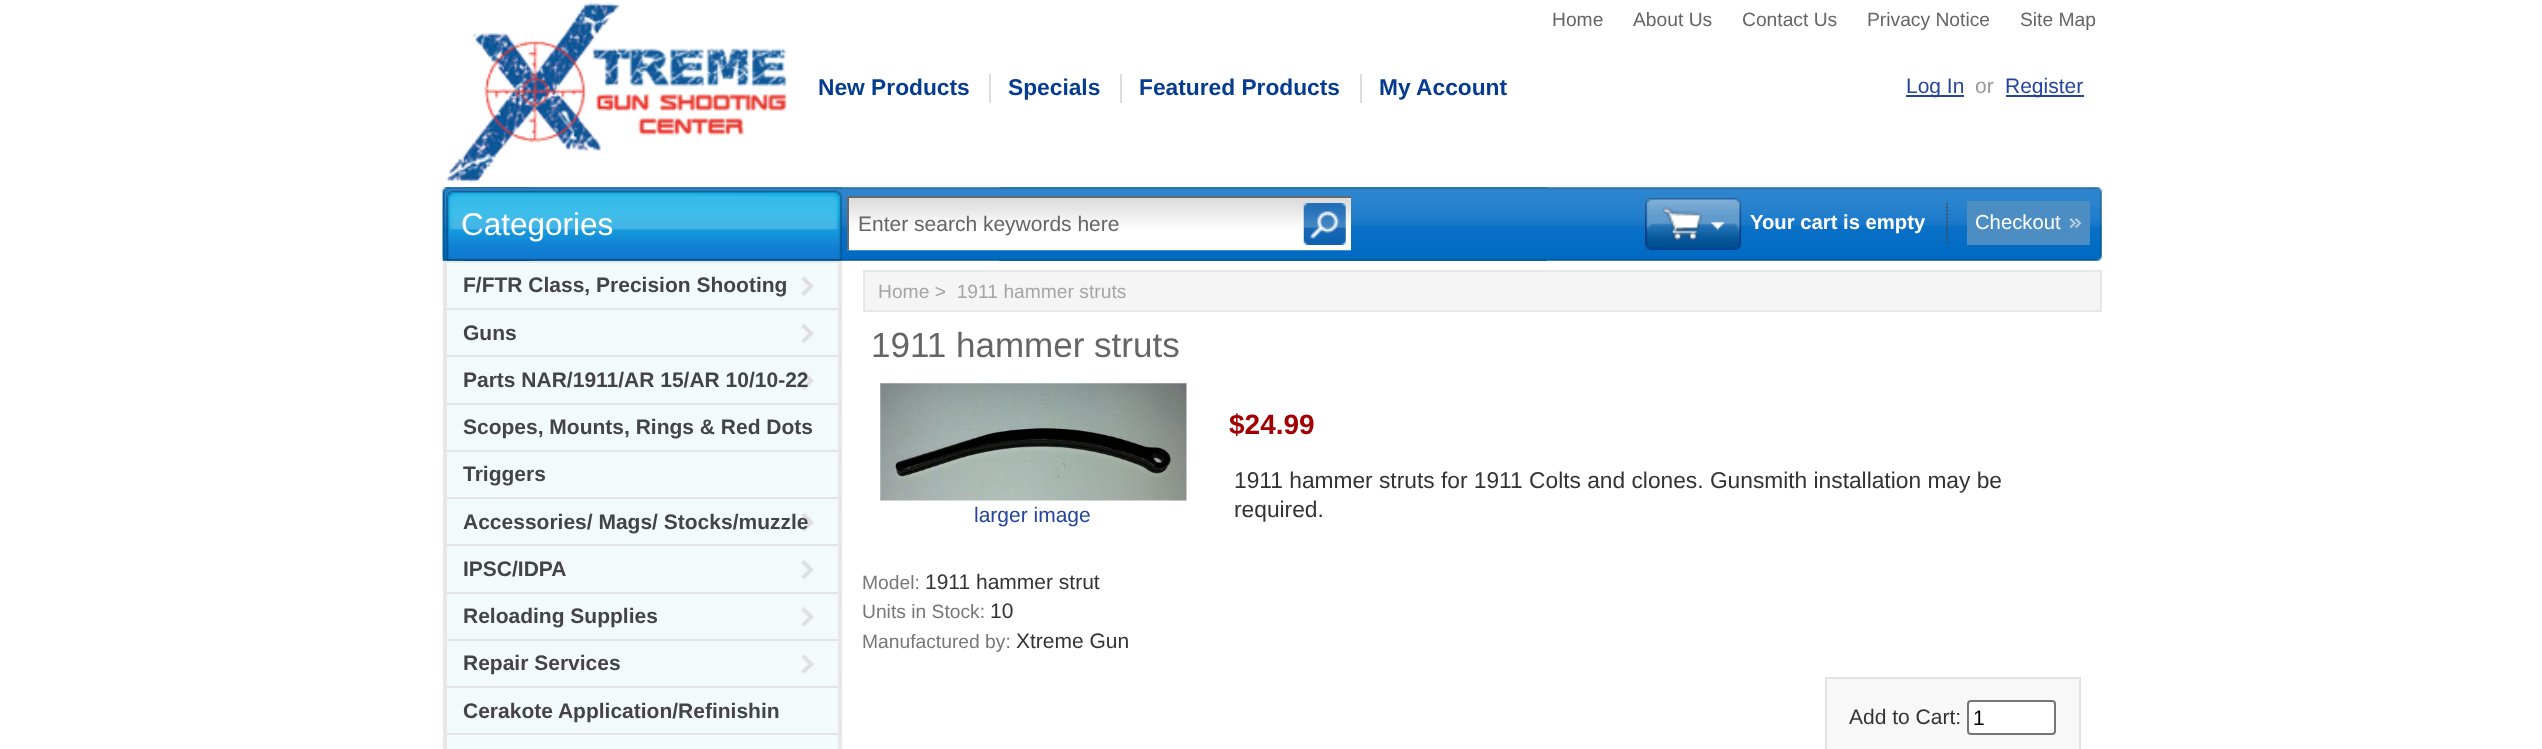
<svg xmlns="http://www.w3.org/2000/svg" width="2542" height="749">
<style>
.a{font:19.25px Liberation Sans;fill:#656565}
.b{font:bold 22.75px Liberation Sans;fill:#053c90}
.c{font:21px Liberation Sans;fill:#25449e}
.d{font:21px Liberation Sans;fill:#999}
.e{font:21px Liberation Sans;fill:#656565}
.f{font:bold 20.25px Liberation Sans;fill:#fff}
.g{font:20.25px Liberation Sans;fill:#fff}
.h{font:31.5px Liberation Sans;fill:#fff}
.i{font:bold 21px Liberation Sans;fill:#444}
.j{font:19.25px Liberation Sans;fill:#a5a5a5}
.k{font:35px Liberation Sans;fill:#656565}
.l{font:19.25px Liberation Sans;fill:#777}
.m{font:21px Liberation Sans;fill:#333}
.n{font:bold 28px Liberation Sans;fill:#a30101}
.o{font:22.75px Liberation Sans;fill:#333}
.p{font:21px Liberation Sans;fill:#000}
</style>
<rect width="100%" height="100%" fill="#fff"/>
<image href="1.png" x="446" y="3" width="341" height="180"/>
<path fill="#dcdcdc" d="M989 74h2v29H989z"/>
<path fill="#dcdcdc" d="M1120 74h2v29H1120z"/>
<path fill="#dcdcdc" d="M1360 74h2v29H1360z"/>
<path fill="#25449e" d="M1906 95h58v2H1906z"/>
<path fill="#25449e" d="M2006 95h78v2H2006z"/>
<image href="2.png" x="442" y="187" width="1105" height="74"/>
<image href="3.png" x="999" y="187" width="1103" height="74"/>
<image href="4.png" x="847" y="198" width="504" height="53"/>
<path fill="#696969" d="M847 196h504v2H847z"/>
<path fill="#696969" d="M847 196h2v54H847z"/>
<image href="5.png" x="1303" y="203" width="43" height="42"/>
<image href="6.png" x="1645" y="198" width="97" height="52"/>
<image href="7.png" x="1946" y="203" width="2" height="41"/>
<path fill="#4c8dc3" d="M1967 201h123v44H1967z"/>
<image href="8.png" x="2070" y="218" width="12" height="10"/>
<image href="9.png" x="442" y="187" width="90" height="74"/>
<image href="10.png" x="462" y="187" width="380" height="74"/>
<path fill="#f3fafa" d="M447 263h391v486H447z"/>
<path fill="#e8e8e8" d="M443 261h399v2H443z"/>
<path fill="#e8e8e8" d="M838 261h4v488H838z"/>
<path fill="#e8e8e8" d="M443 261h4v488H443z"/>
<image href="11.png" x="801" y="276" width="13" height="20"/>
<path fill="#e5e5e5" d="M446 308h392v2H446z"/>
<image href="12.png" x="801" y="323" width="13" height="20"/>
<path fill="#e5e5e5" d="M446 355h392v2H446z"/>
<image href="13.png" x="801" y="371" width="13" height="20"/>
<path fill="#e5e5e5" d="M446 403h392v2H446z"/>
<path fill="#e5e5e5" d="M446 450h392v2H446z"/>
<path fill="#e5e5e5" d="M446 497h392v2H446z"/>
<image href="12.png" x="801" y="512" width="13" height="20"/>
<path fill="#e5e5e5" d="M446 544h392v2H446z"/>
<image href="13.png" x="801" y="560" width="13" height="20"/>
<path fill="#e5e5e5" d="M446 592h392v2H446z"/>
<image href="14.png" x="801" y="607" width="13" height="20"/>
<path fill="#e5e5e5" d="M446 639h392v2H446z"/>
<image href="11.png" x="801" y="654" width="13" height="20"/>
<path fill="#e5e5e5" d="M446 686h392v2H446z"/>
<path fill="#e5e5e5" d="M446 733h392v2H446z"/>
<path fill="#f5f5f5" stroke="#e7e7e7" stroke-width="2" d="M864 271h1237v40H864z"/>
<image href="15.png" x="880" y="383" width="307" height="118"/>
<path fill="#f8f8f8" stroke="#e2e2e2" stroke-width="2" d="M1826 678h254v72H1826z"/>
<rect fill="#fff" stroke="#767676" stroke-width="2" x="1968" y="701" width="87" height="33" rx="3"/>
<text class="a" x="1552" y="26">Home</text>
<text class="a" x="1633" y="26">About Us</text>
<text class="a" x="1742" y="26">Contact Us</text>
<text class="a" x="1867" y="26">Privacy Notice</text>
<text class="a" x="2020" y="26">Site Map</text>
<text class="b" x="818" y="95">New Products</text>
<text class="b" x="1008" y="95">Specials</text>
<text class="b" x="1139" y="95">Featured Products</text>
<text class="b" x="1379" y="95">My Account</text>
<text class="c" x="1906" y="93">Log In</text>
<text class="d" x="1975" y="93">or</text>
<text class="c" x="2005" y="93">Register</text>
<text class="e" x="858" y="231">Enter search keywords here</text>
<text class="f" x="1750" y="229">Your cart is empty</text>
<text class="g" x="1975" y="229">Checkout</text>
<text class="h" x="461" y="235">Categories</text>
<text class="i" x="463" y="292">F/FTR Class, Precision Shooting</text>
<text class="i" x="463" y="340">Guns</text>
<text class="i" x="463" y="387">Parts NAR/1911/AR 15/AR 10/10-22</text>
<text class="i" x="463" y="434">Scopes, Mounts, Rings &amp; Red Dots</text>
<text class="i" x="463" y="481">Triggers</text>
<text class="i" x="463" y="529">Accessories/ Mags/ Stocks/muzzle</text>
<text class="i" x="463" y="576">IPSC/IDPA</text>
<text class="i" x="463" y="623">Reloading Supplies</text>
<text class="i" x="463" y="670">Repair Services</text>
<text class="i" x="463" y="718">Cerakote Application/Refinishin</text>
<text class="j" xml:space="preserve" x="878" y="298">Home &gt;  1911 hammer struts</text>
<text class="k" x="871" y="357">1911 hammer struts</text>
<text class="c" x="974" y="522">larger image</text>
<text class="l" x="862" y="589">Model:</text>
<text class="m" x="925" y="589">1911 hammer strut</text>
<text class="l" x="862" y="618">Units in Stock:</text>
<text class="m" x="990" y="618">10</text>
<text class="l" x="862" y="648">Manufactured by:</text>
<text class="m" x="1016" y="648">Xtreme Gun</text>
<text class="n" x="1229" y="434">$24.99</text>
<text class="o" x="1234" y="488">1911 hammer struts for 1911 Colts and clones. Gunsmith installation may be</text>
<text class="o" x="1234" y="517">required.</text>
<text class="m" x="1849" y="724">Add to Cart:</text>
<text class="p" x="1973" y="725">1</text>
</svg>
